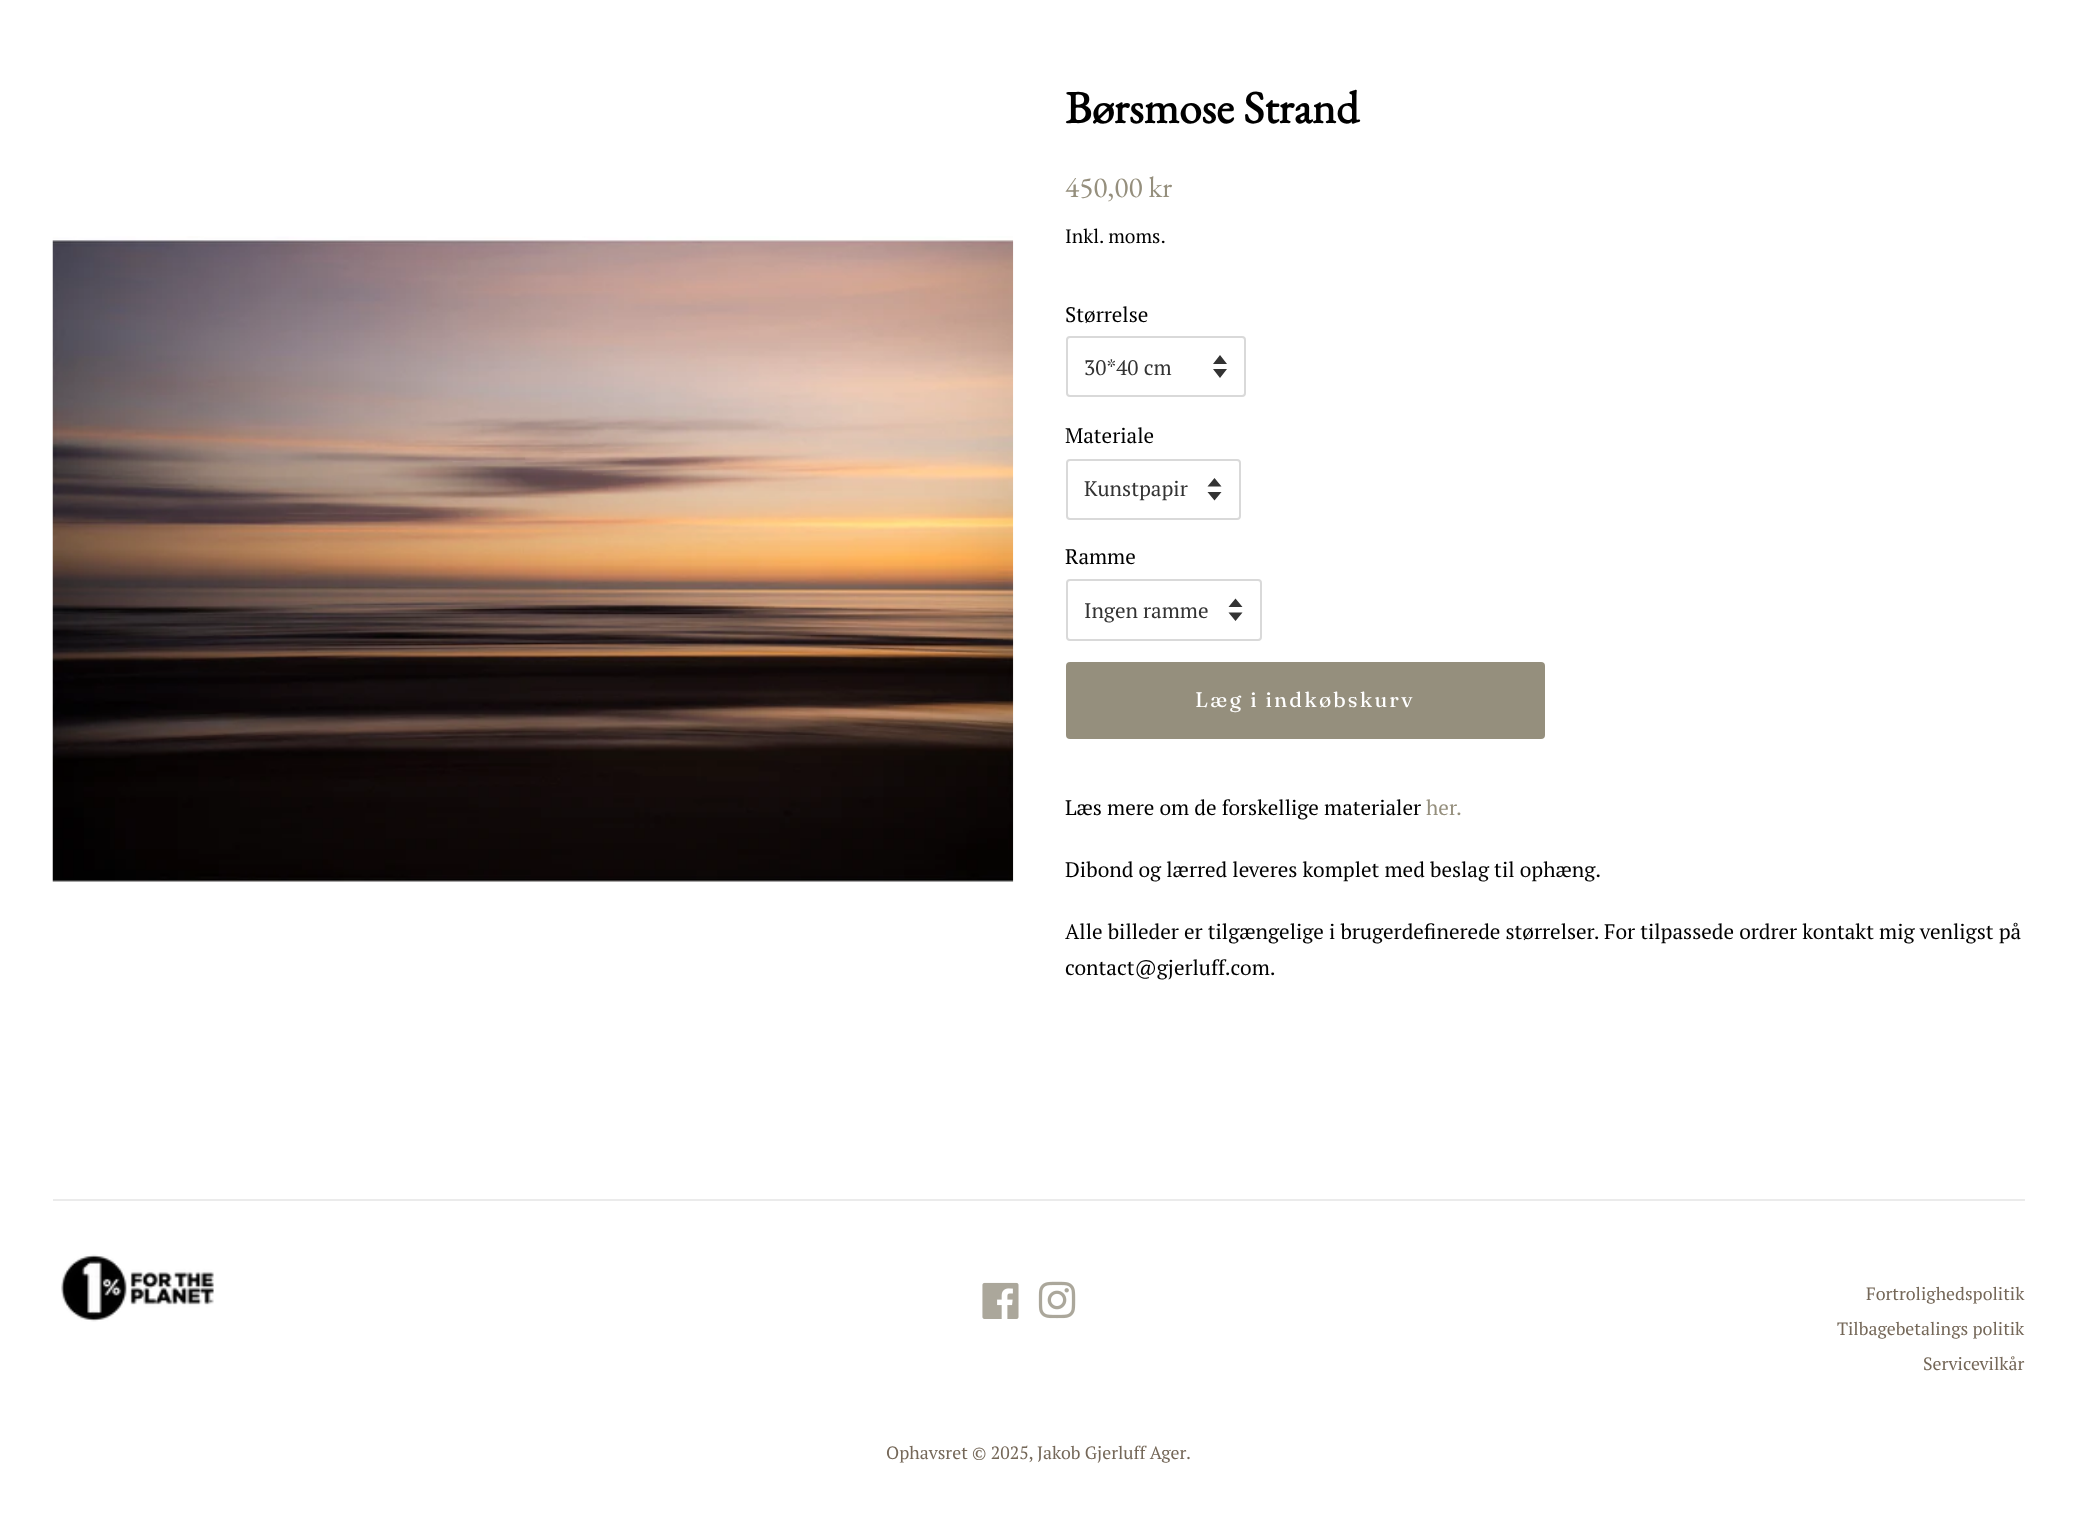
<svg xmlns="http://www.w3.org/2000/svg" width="2077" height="1520">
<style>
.a{font:bold 45.5px EB Garamond;fill:#000}
.b{font:29.5px EB Garamond;fill:#958f7d}
.c{font:19.25px PT Serif;fill:#000}
.d{font:21px PT Serif;fill:#000}
.e{font:21px PT Serif;fill:#333}
.f{font:21px Fraunces;letter-spacing:2.1px;fill:#fff}
.g{font:21px PT Serif;fill:#958f7d}
.h{font:17.8px PT Serif;fill:#756859}
</style>
<rect width="100%" height="100%" fill="#fff"/>
<image href="1.png" x="52" y="236" width="962" height="646"/>
<path fill="#333" d="M1213 369l7 9l7-9zm7-14l-7 9h14z"/>
<rect fill="none" stroke="#d9d9d9" stroke-width="2" x="1067" y="337" width="178" height="59" rx="3"/>
<path fill="#333" d="M1207.5 492l7 8.5l7-8.5zm7-14l-7 8.5h14z"/>
<rect fill="none" stroke="#d9d9d9" stroke-width="2" x="1067" y="460" width="173" height="59" rx="3"/>
<path fill="#333" d="M1228.5 612.5l7 8.5l7-8.5zm7-14l-7 8.5h14z"/>
<rect fill="none" stroke="#d9d9d9" stroke-width="2" x="1067" y="580" width="194" height="60" rx="3"/>
<rect fill="#958f7d" x="1066" y="662" width="479" height="77" rx="4"/>
<path fill="#ebebeb" d="M53 1199h1972v2H53z"/>
<image href="2.png" x="61" y="1254" width="153" height="68"/>
<image href="3.png" x="982" y="1282" width="37" height="37"/>
<image href="4.png" x="1038" y="1281" width="38" height="38"/>
<text class="a" x="1065" y="123">Børsmose Strand</text>
<text class="b" x="1065" y="197">450,00 kr</text>
<text class="c" x="1065" y="243">Inkl. moms.</text>
<text class="d" x="1065" y="322">Størrelse</text>
<text class="e" x="1084" y="375">30*40 cm</text>
<text class="d" x="1065" y="443">Materiale</text>
<text class="e" x="1084" y="496">Kunstpapir</text>
<text class="d" x="1065" y="564">Ramme</text>
<text class="e" x="1084" y="618">Ingen ramme</text>
<text class="f" x="1195" y="707">Læg i indkøbskurv</text>
<text class="d" x="1065" y="815">Læs mere om de forskellige materialer</text>
<text class="g" x="1426" y="815">her.</text>
<text class="d" x="1065" y="877">Dibond og lærred leveres komplet med beslag til ophæng.</text>
<text class="d" x="1065" y="939">Alle billeder er tilgængelige i brugerdefinerede størrelser. For tilpassede ordrer kontakt mig venligst på</text>
<text class="d" x="1065" y="975">contact@gjerluff.com.</text>
<text class="h" x="1866" y="1300">Fortrolighedspolitik</text>
<text class="h" x="1837" y="1335">Tilbagebetalings politik</text>
<text class="h" x="1923" y="1370">Servicevilkår</text>
<text class="h" x="886" y="1459">Ophavsret © 2025,</text>
<text class="h" x="1037" y="1459">Jakob Gjerluff Ager</text>
<text class="h" x="1186" y="1459">.</text>
</svg>
